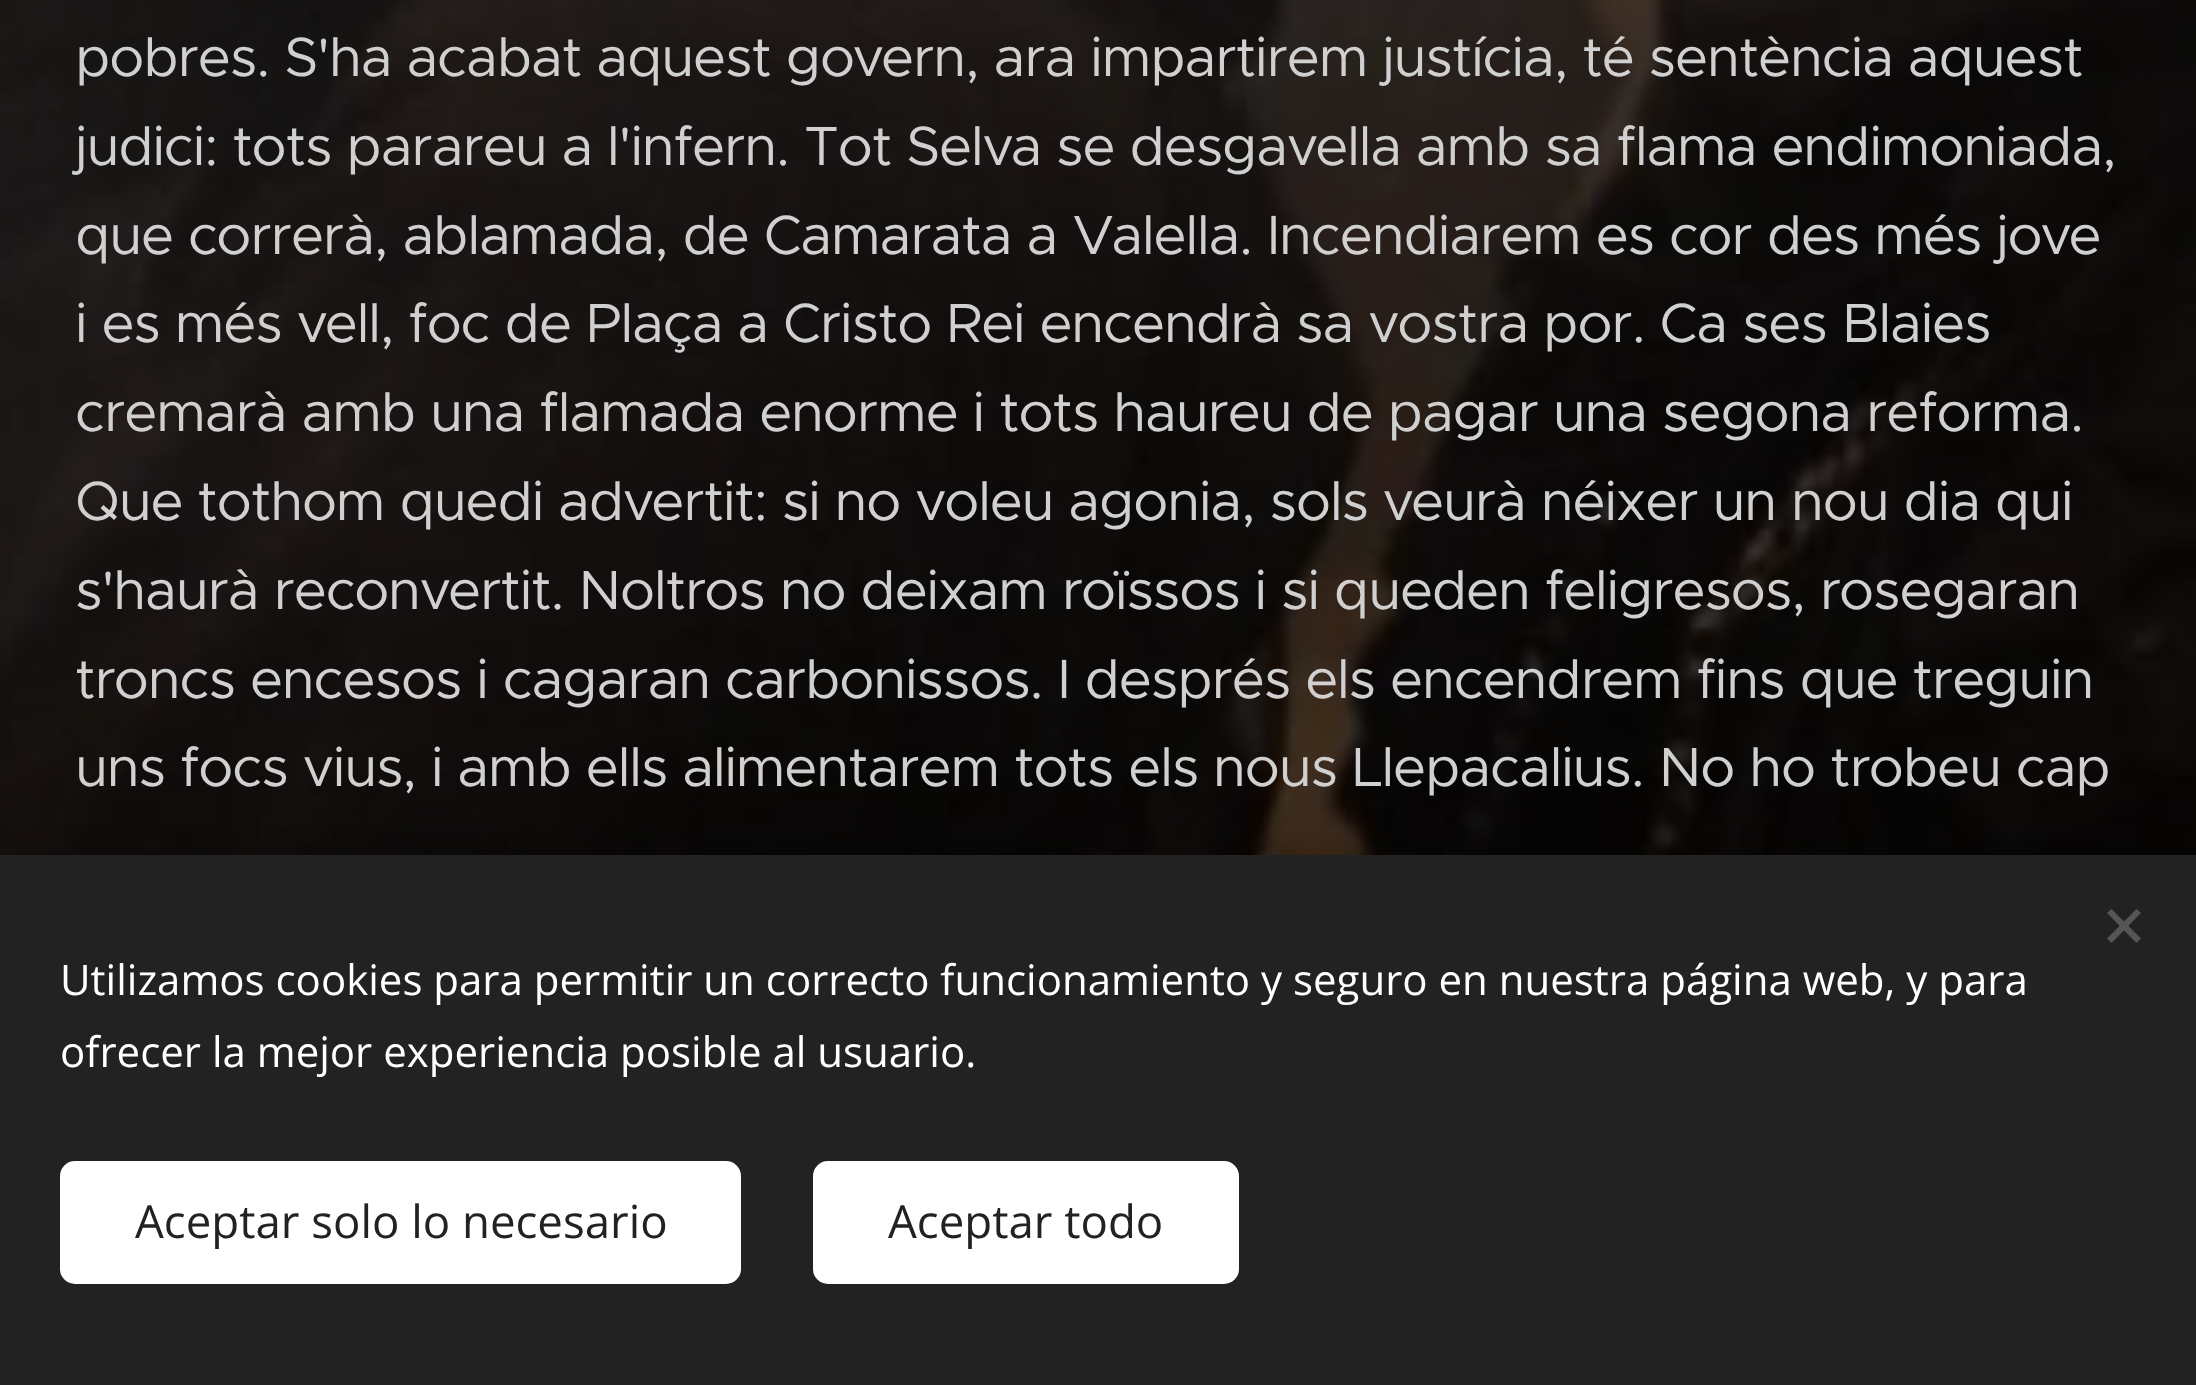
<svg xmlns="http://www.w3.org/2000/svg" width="2196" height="1385">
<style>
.a{font:55.5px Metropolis;letter-spacing:-1.1px;fill:#d1d0d0}
.b{font:42px Open Sans;fill:#fff}
.c{font:45.6px Open Sans;fill:#222}
</style>
<rect width="100%" height="100%" fill="#fff"/>
<image href="1.png" x="0" y="0" width="2196" height="855"/>
<path fill="#00000054" filter="blur(37.5px)" d="M0 855h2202v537H0z"/>
<path fill="#222" d="M0 855h2196v530H0z"/>
<path fill="#555" d="M2107 938.5l29.5-29.5l4.5 4l-29.5 30z"/>
<path fill="#555" d="M2111.5 909l29.5 29.5l-4.5 4.5l-29.5-30z"/>
<rect fill="#fff" x="60" y="1161" width="681" height="123" rx="15"/>
<rect fill="#fff" x="813" y="1161" width="426" height="123" rx="15"/>
<text class="a" x="75" y="76">pobres. S'ha acabat aquest govern, ara impartirem justícia, té sentència aquest</text>
<text class="a" x="75" y="165">judici: tots parareu a l'infern. Tot Selva se desgavella amb sa flama endimoniada,</text>
<text class="a" x="75" y="254">que correrà, ablamada, de Camarata a Valella. Incendiarem es cor des més jove</text>
<text class="a" x="75" y="342">i es més vell, foc de Plaça a Cristo Rei encendrà sa vostra por. Ca ses Blaies</text>
<text class="a" x="75" y="431">cremarà amb una flamada enorme i tots haureu de pagar una segona reforma.</text>
<text class="a" x="75" y="520">Que tothom quedi advertit: si no voleu agonia, sols veurà néixer un nou dia qui</text>
<text class="a" x="75" y="609">s'haurà reconvertit. Noltros no deixam roïssos i si queden feligresos, rosegaran</text>
<text class="a" x="75" y="698">troncs encesos i cagaran carbonissos. I després els encendrem fins que treguin</text>
<text class="a" x="75" y="786">uns focs vius, i amb ells alimentarem tots els nous Llepacalius. No ho trobeu cap</text>
<text class="b" x="60" y="995">Utilizamos cookies para permitir un correcto funcionamiento y seguro en nuestra página web, y para</text>
<text class="b" x="60" y="1067">ofrecer la mejor experiencia posible al usuario.</text>
<text class="c" x="135" y="1238">Aceptar solo lo necesario</text>
<text class="c" x="888" y="1238">Aceptar todo</text>
</svg>
